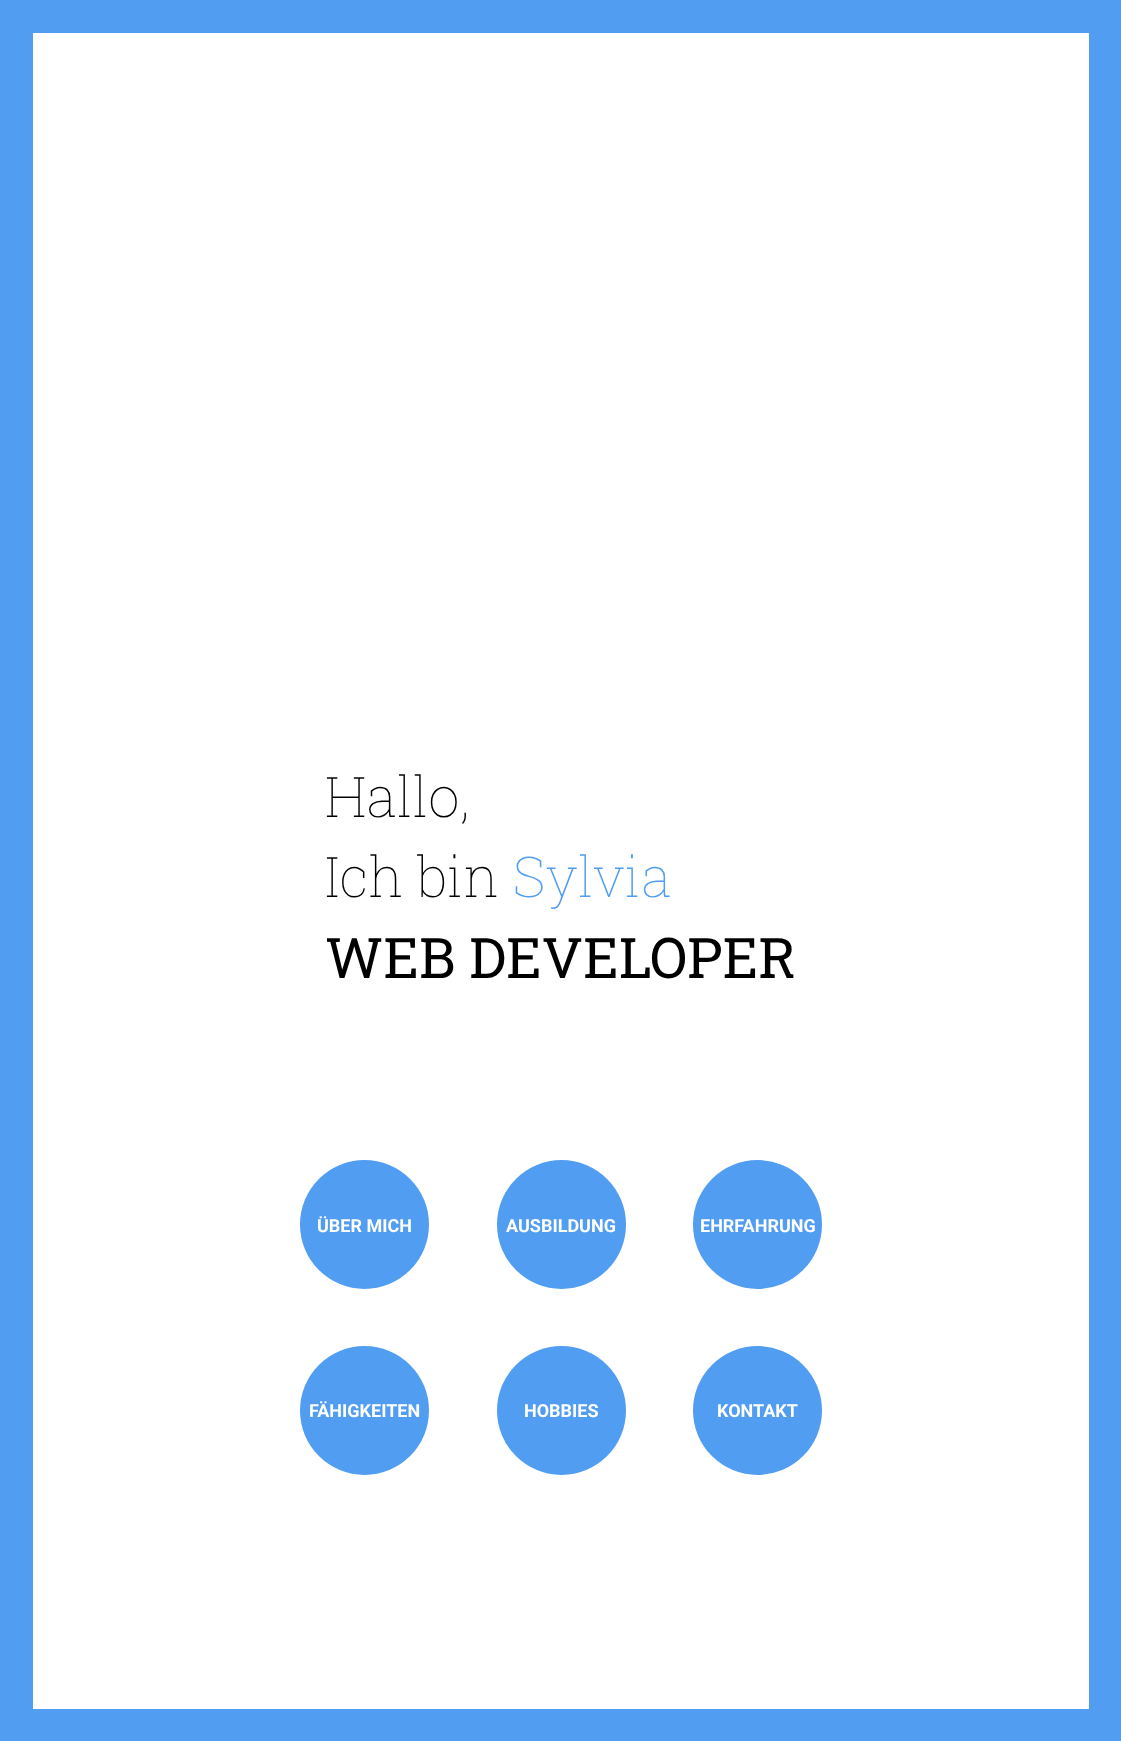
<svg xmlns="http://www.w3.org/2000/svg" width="1121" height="1741">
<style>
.a{font:100 56px Roboto Slab;fill:#000}
.b{font:100 56px Roboto Slab;fill:#519df1}
.c{font:56px Roboto Slab;fill:#000}
.d{font:bold 18px Roboto;fill:#fff}
</style>
<rect width="100%" height="100%" fill="#fff"/>
<path fill="none" stroke="#519df1" stroke-width="33" d="M16.5 16.5h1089v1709H16.5z"/>
<circle fill="#519df1" cx="364.5" cy="1224.5" r="64.5"/>
<circle fill="#519df1" cx="561.5" cy="1224.5" r="64.5"/>
<circle fill="#519df1" cx="757.5" cy="1224.5" r="64.5"/>
<circle fill="#519df1" cx="364.5" cy="1410.5" r="64.5"/>
<circle fill="#519df1" cx="561.5" cy="1410.5" r="64.5"/>
<circle fill="#519df1" cx="757.5" cy="1410.5" r="64.5"/>
<text class="a" x="325" y="817">Hallo,</text>
<text class="a" x="325" y="897">Ich bin</text>
<text class="b" x="513" y="897">Sylvia</text>
<text class="c" x="325" y="978">WEB DEVELOPER</text>
<text class="d" x="317" y="1232">ÜBER MICH</text>
<text class="d" x="506" y="1232">AUSBILDUNG</text>
<text class="d" x="700" y="1232">EHRFAHRUNG</text>
<text class="d" x="309" y="1417">FÄHIGKEITEN</text>
<text class="d" x="524" y="1417">HOBBIES</text>
<text class="d" x="717" y="1417">KONTAKT</text>
</svg>
